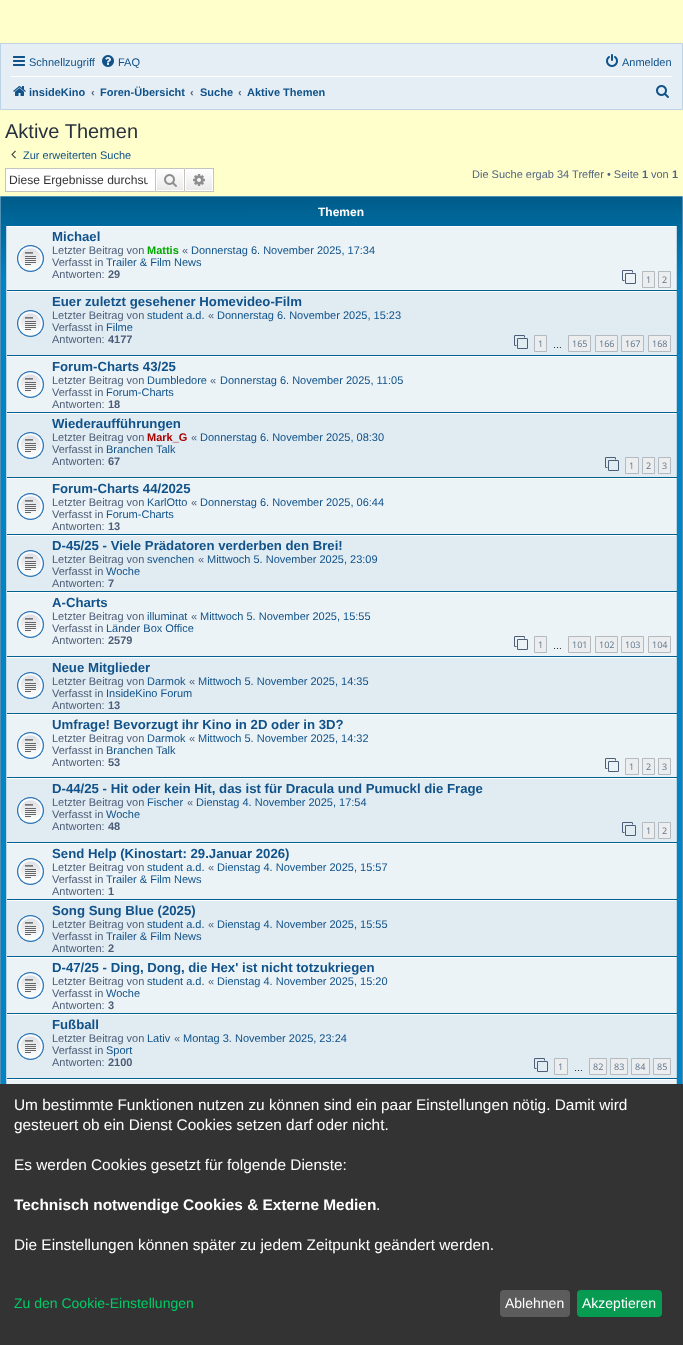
<svg xmlns="http://www.w3.org/2000/svg" width="683" height="1345">
<style>
.a{font:11px Liberation Sans;fill:#105289}
.b{font:bold 11px Liberation Sans;fill:#105289}
.c{font:bold 11px Liberation Sans;fill:#536482}
.d{font:20px Liberation Sans;fill:#28313f}
.e{font:12.1px Liberation Sans;fill:#333}
.f{font:11px Liberation Sans;fill:#536482}
.g{font:bold 12px Liberation Sans;fill:#fff}
.h{font:bold 13.2px Liberation Sans;fill:#105289}
.i{font:11px Liberation Sans;fill:#4c5d77}
.j{font:bold 11px Liberation Sans;fill:#0a0}
.k{font:bold 11px Liberation Sans;fill:#4c5d77}
.l{font:9px Open Sans;fill:#5c758c}
.m{font:9px Liberation Sans;fill:#000}
.n{font:bold 11px Liberation Sans;fill:#a00}
.o{font:15.4px Liberation Sans;fill:#fff}
.p{font:bold 15.4px Liberation Sans;fill:#fff}
.q{font:14px Liberation Sans;fill:#0c6}
.r{font:14px Liberation Sans;fill:#fff}
</style>
<defs>
<linearGradient id="g1" gradientUnits="userSpaceOnUse" x1="170" y1="169" x2="170" y2="191"><stop offset="0" stop-color="#fff"/><stop offset="1" stop-color="#e9e9e9"/></linearGradient>
<linearGradient id="g2" gradientUnits="userSpaceOnUse" x1="199" y1="169" x2="199" y2="191"><stop offset="0" stop-color="#fff"/><stop offset="1" stop-color="#e9e9e9"/></linearGradient>
<linearGradient id="g3" gradientUnits="userSpaceOnUse" x1="341" y1="197" x2="342" y2="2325"><stop offset="0" stop-color="#003f5e"/><stop offset="0" stop-color="#005c8a"/><stop offset="0.04" stop-color="#0084c4"/><stop offset="1" stop-color="#0084c4"/></linearGradient>
<clipPath id="clip1"><path d="M9 173h139v14H9z"/></clipPath>
</defs>
<rect width="100%" height="100%" fill="#ffc"/>
<path fill="#e5eef5" stroke="#bcd4e3" d="M0.5 43.5h682v66H0.5z"/>
<image href="1.png" x="13" y="56" width="12" height="10"/>
<image href="2.png" x="102" y="55" width="12" height="12"/>
<image href="3.png" x="606" y="54" width="12" height="13"/>
<path fill="#fff" d="M11 76h661v1H11z"/>
<image href="4.png" x="13" y="86" width="13" height="10"/>
<image href="5.png" x="656" y="85" width="13" height="13"/>
<image href="6.png" x="11" y="150" width="5" height="9"/>
<path fill="#fff" d="M6 169h149v22H6z"/>
<path fill="#c7c3bf" d="M5 168h150v1H5z"/>
<path fill="#c7c3bf" d="M5 191h150v1H5z"/>
<path fill="#c7c3bf" d="M5 168h1v24H5z"/>
<path fill="url(#g1)" d="M157 170h26v20H157z"/>
<path fill="none" stroke="#fff" d="M156.5 169.5h27v21H156.5z"/>
<path fill="none" stroke="#c7c3bf" d="M155.5 168.5h29v23H155.5z"/>
<image href="7.png" x="164" y="174" width="13" height="13"/>
<path fill="url(#g2)" d="M186 170h26v20H186z"/>
<path fill="none" stroke="#fff" d="M185.5 169.5h27v21H185.5z"/>
<path fill="#c7c3bf" d="M185 168h29v1H185z"/>
<path fill="#c7c3bf" d="M213 168h1v24H213z"/>
<path fill="#c7c3bf" d="M185 191h29v1H185z"/>
<image href="8.png" x="193" y="174" width="12" height="12"/>
<path fill="url(#g3)" d="M1 197h681v887H1z"/>
<path fill="none" stroke="#4f91b6" d="M0.5 196.5h682v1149H0.5z"/>
<path fill="#ecf3f7" d="M7 227h669v63H7z"/>
<path fill="#fff" d="M6 226h671v1H6z"/>
<path fill="#bcd4e3" d="M676 226h1v65H676z"/>
<path fill="#00608f" d="M6 290h671v1H6z"/>
<path fill="#bcd4e3" d="M6 226h1v65H6z"/>
<image href="9.png" x="17" y="245" width="27" height="27"/>
<image href="10.png" x="622" y="270" width="14" height="14"/>
<path fill="#ecedee" stroke="#b4bac0" d="M642.5 271.5h12v16H642.5z"/>
<path fill="#ecedee" stroke="#b4bac0" d="M658.5 271.5h12v16H658.5z"/>
<path fill="#e1ebf2" d="M7 292h669v63H7z"/>
<path fill="#fff" d="M6 291h671v1H6z"/>
<path fill="#bcd4e3" d="M676 291h1v65H676z"/>
<path fill="#00608f" d="M6 355h671v1H6z"/>
<path fill="#bcd4e3" d="M6 291h1v65H6z"/>
<image href="11.png" x="17" y="310" width="27" height="27"/>
<image href="12.png" x="514" y="335" width="14" height="14"/>
<path fill="#ecedee" stroke="#b4bac0" d="M534.5 335.5h12v16H534.5z"/>
<path fill="#ecedee" stroke="#b4bac0" d="M568.5 335.5h22v16H568.5z"/>
<path fill="#ecedee" stroke="#b4bac0" d="M595.5 335.5h22v16H595.5z"/>
<path fill="#ecedee" stroke="#b4bac0" d="M621.5 335.5h22v16H621.5z"/>
<path fill="#ecedee" stroke="#b4bac0" d="M648.5 335.5h22v16H648.5z"/>
<path fill="#ecf3f7" d="M7 357h669v55H7z"/>
<path fill="#fff" d="M6 356h671v1H6z"/>
<path fill="#bcd4e3" d="M676 356h1v57H676z"/>
<path fill="#00608f" d="M6 412h671v1H6z"/>
<path fill="#bcd4e3" d="M6 356h1v57H6z"/>
<image href="9.png" x="17" y="371" width="27" height="27"/>
<path fill="#e1ebf2" d="M7 414h669v63H7z"/>
<path fill="#fff" d="M6 413h671v1H6z"/>
<path fill="#bcd4e3" d="M676 413h1v65H676z"/>
<path fill="#00608f" d="M6 477h671v1H6z"/>
<path fill="#bcd4e3" d="M6 413h1v65H6z"/>
<image href="11.png" x="17" y="432" width="27" height="27"/>
<image href="12.png" x="605" y="457" width="14" height="14"/>
<path fill="#ecedee" stroke="#b4bac0" d="M625.5 457.5h13v16H625.5z"/>
<path fill="#ecedee" stroke="#b4bac0" d="M642.5 457.5h12v16H642.5z"/>
<path fill="#ecedee" stroke="#b4bac0" d="M658.5 457.5h12v16H658.5z"/>
<path fill="#ecf3f7" d="M7 479h669v55H7z"/>
<path fill="#fff" d="M6 478h671v1H6z"/>
<path fill="#bcd4e3" d="M676 478h1v57H676z"/>
<path fill="#00608f" d="M6 534h671v1H6z"/>
<path fill="#bcd4e3" d="M6 478h1v57H6z"/>
<image href="9.png" x="17" y="493" width="27" height="27"/>
<path fill="#e1ebf2" d="M7 536h669v55H7z"/>
<path fill="#fff" d="M6 535h671v1H6z"/>
<path fill="#bcd4e3" d="M676 535h1v57H676z"/>
<path fill="#00608f" d="M6 591h671v1H6z"/>
<path fill="#bcd4e3" d="M6 535h1v57H6z"/>
<image href="11.png" x="17" y="550" width="27" height="27"/>
<path fill="#ecf3f7" d="M7 593h669v63H7z"/>
<path fill="#fff" d="M6 592h671v1H6z"/>
<path fill="#bcd4e3" d="M676 592h1v65H676z"/>
<path fill="#00608f" d="M6 656h671v1H6z"/>
<path fill="#bcd4e3" d="M6 592h1v65H6z"/>
<image href="9.png" x="17" y="611" width="27" height="27"/>
<image href="10.png" x="514" y="636" width="14" height="14"/>
<path fill="#ecedee" stroke="#b4bac0" d="M534.5 636.5h12v16H534.5z"/>
<path fill="#ecedee" stroke="#b4bac0" d="M568.5 636.5h22v16H568.5z"/>
<path fill="#ecedee" stroke="#b4bac0" d="M595.5 636.5h22v16H595.5z"/>
<path fill="#ecedee" stroke="#b4bac0" d="M621.5 636.5h22v16H621.5z"/>
<path fill="#ecedee" stroke="#b4bac0" d="M648.5 636.5h22v16H648.5z"/>
<path fill="#e1ebf2" d="M7 658h669v55H7z"/>
<path fill="#fff" d="M6 657h671v1H6z"/>
<path fill="#bcd4e3" d="M676 657h1v57H676z"/>
<path fill="#00608f" d="M6 713h671v1H6z"/>
<path fill="#bcd4e3" d="M6 657h1v57H6z"/>
<image href="11.png" x="17" y="672" width="27" height="27"/>
<path fill="#ecf3f7" d="M7 715h669v62H7z"/>
<path fill="#fff" d="M6 714h671v1H6z"/>
<path fill="#bcd4e3" d="M676 714h1v64H676z"/>
<path fill="#00608f" d="M6 777h671v1H6z"/>
<path fill="#bcd4e3" d="M6 714h1v64H6z"/>
<image href="9.png" x="17" y="732" width="27" height="27"/>
<image href="10.png" x="605" y="758" width="14" height="14"/>
<path fill="#ecedee" stroke="#b4bac0" d="M625.5 758.5h13v16H625.5z"/>
<path fill="#ecedee" stroke="#b4bac0" d="M642.5 758.5h12v16H642.5z"/>
<path fill="#ecedee" stroke="#b4bac0" d="M658.5 758.5h12v16H658.5z"/>
<path fill="#e1ebf2" d="M7 779h669v63H7z"/>
<path fill="#fff" d="M6 778h671v1H6z"/>
<path fill="#bcd4e3" d="M676 778h1v65H676z"/>
<path fill="#00608f" d="M6 842h671v1H6z"/>
<path fill="#bcd4e3" d="M6 778h1v65H6z"/>
<image href="11.png" x="17" y="797" width="27" height="27"/>
<image href="12.png" x="622" y="822" width="14" height="14"/>
<path fill="#ecedee" stroke="#b4bac0" d="M642.5 822.5h12v16H642.5z"/>
<path fill="#ecedee" stroke="#b4bac0" d="M658.5 822.5h12v16H658.5z"/>
<path fill="#ecf3f7" d="M7 844h669v55H7z"/>
<path fill="#fff" d="M6 843h671v1H6z"/>
<path fill="#bcd4e3" d="M676 843h1v57H676z"/>
<path fill="#00608f" d="M6 899h671v1H6z"/>
<path fill="#bcd4e3" d="M6 843h1v57H6z"/>
<image href="9.png" x="17" y="858" width="27" height="27"/>
<path fill="#e1ebf2" d="M7 901h669v55H7z"/>
<path fill="#fff" d="M6 900h671v1H6z"/>
<path fill="#bcd4e3" d="M676 900h1v57H676z"/>
<path fill="#00608f" d="M6 956h671v1H6z"/>
<path fill="#bcd4e3" d="M6 900h1v57H6z"/>
<image href="11.png" x="17" y="915" width="27" height="27"/>
<path fill="#ecf3f7" d="M7 958h669v55H7z"/>
<path fill="#fff" d="M6 957h671v1H6z"/>
<path fill="#bcd4e3" d="M676 957h1v57H676z"/>
<path fill="#00608f" d="M6 1013h671v1H6z"/>
<path fill="#bcd4e3" d="M6 957h1v57H6z"/>
<image href="9.png" x="17" y="972" width="27" height="27"/>
<path fill="#e1ebf2" d="M7 1015h669v63H7z"/>
<path fill="#fff" d="M6 1014h671v1H6z"/>
<path fill="#bcd4e3" d="M676 1014h1v65H676z"/>
<path fill="#00608f" d="M6 1078h671v1H6z"/>
<path fill="#bcd4e3" d="M6 1014h1v65H6z"/>
<image href="11.png" x="17" y="1033" width="27" height="27"/>
<image href="12.png" x="534" y="1058" width="14" height="14"/>
<path fill="#ecedee" stroke="#b4bac0" d="M554.5 1058.5h13v16H554.5z"/>
<path fill="#ecedee" stroke="#b4bac0" d="M589.5 1058.5h17v16H589.5z"/>
<path fill="#ecedee" stroke="#b4bac0" d="M610.5 1058.5h17v16H610.5z"/>
<path fill="#ecedee" stroke="#b4bac0" d="M631.5 1058.5h18v16H631.5z"/>
<path fill="#ecedee" stroke="#b4bac0" d="M653.5 1058.5h17v16H653.5z"/>
<path fill="#ecf3f7" d="M7 1080h669v4H7z"/>
<path fill="#fff" d="M6 1079h671v1H6z"/>
<path fill="#bcd4e3" d="M676 1079h1v5H676z"/>
<path fill="#bcd4e3" d="M6 1079h1v5H6z"/>
<path fill="#333" d="M0 1084h683v261H0z"/>
<rect fill="#5c5c5c" x="500" y="1290" width="70" height="27" rx="4"/>
<rect fill="#079a51" x="577" y="1290" width="85" height="27" rx="4"/>
<text class="a" x="29" y="66">Schnellzugriff</text>
<text class="a" x="118" y="66">FAQ</text>
<text class="a" x="622" y="66">Anmelden</text>
<text class="b" x="29" y="96">insideKino</text>
<text class="c" x="91" y="96">‹</text>
<text class="b" x="100" y="96">Foren-Übersicht</text>
<text class="c" x="190" y="96">‹</text>
<text class="b" x="200" y="96">Suche</text>
<text class="c" x="238" y="96">‹</text>
<text class="b" x="247" y="96">Aktive Themen</text>
<text class="d" x="5" y="138">Aktive Themen</text>
<text class="a" x="23" y="159">Zur erweiterten Suche</text>
<g clip-path="url(#clip1)">
<text class="e" x="9" y="184">Diese Ergebnisse durchsu</text>
</g>
<text class="f" x="472" y="178">Die Suche ergab 34 Treffer • Seite</text>
<text class="c" x="642" y="178">1</text>
<text class="f" x="651" y="178">von</text>
<text class="c" x="672" y="178">1</text>
<text class="g" x="318" y="216">Themen</text>
<text class="h" x="52" y="241">Michael</text>
<text class="i" x="52" y="254">Letzter Beitrag von</text>
<text class="j" x="147" y="254">Mattis</text>
<text class="i" x="182" y="254">«</text>
<text class="a" x="191" y="254">Donnerstag 6. November 2025, 17:34</text>
<text class="i" x="52" y="266">Verfasst in</text>
<text class="a" x="106" y="266">Trailer &amp; Film News</text>
<text class="i" x="52" y="278">Antworten:</text>
<text class="k" x="108" y="278">29</text>
<text class="l" x="646" y="283">1</text>
<text class="l" x="662" y="283">2</text>
<text class="h" x="52" y="306">Euer zuletzt gesehener Homevideo-Film</text>
<text class="i" x="52" y="319">Letzter Beitrag von</text>
<text class="a" x="147" y="319">student a.d.</text>
<text class="i" x="208" y="319">«</text>
<text class="a" x="217" y="319">Donnerstag 6. November 2025, 15:23</text>
<text class="i" x="52" y="331">Verfasst in</text>
<text class="a" x="106" y="331">Filme</text>
<text class="i" x="52" y="343">Antworten:</text>
<text class="k" x="108" y="343">4177</text>
<text class="l" x="538" y="347">1</text>
<text class="m" x="553" y="348">…</text>
<text class="l" x="572" y="347">165</text>
<text class="l" x="599" y="347">166</text>
<text class="l" x="625" y="347">167</text>
<text class="l" x="652" y="347">168</text>
<text class="h" x="52" y="371">Forum-Charts 43/25</text>
<text class="i" x="52" y="384">Letzter Beitrag von</text>
<text class="a" x="147" y="384">Dumbledore</text>
<text class="i" x="210" y="384">«</text>
<text class="a" x="220" y="384">Donnerstag 6. November 2025, 11:05</text>
<text class="i" x="52" y="396">Verfasst in</text>
<text class="a" x="106" y="396">Forum-Charts</text>
<text class="i" x="52" y="408">Antworten:</text>
<text class="k" x="108" y="408">18</text>
<text class="h" x="52" y="428">Wiederaufführungen</text>
<text class="i" x="52" y="441">Letzter Beitrag von</text>
<text class="n" x="147" y="441">Mark_G</text>
<text class="i" x="191" y="441">«</text>
<text class="a" x="200" y="441">Donnerstag 6. November 2025, 08:30</text>
<text class="i" x="52" y="453">Verfasst in</text>
<text class="a" x="106" y="453">Branchen Talk</text>
<text class="i" x="52" y="465">Antworten:</text>
<text class="k" x="108" y="465">67</text>
<text class="l" x="629" y="469">1</text>
<text class="l" x="646" y="469">2</text>
<text class="l" x="662" y="469">3</text>
<text class="h" x="52" y="493">Forum-Charts 44/2025</text>
<text class="i" x="52" y="506">Letzter Beitrag von</text>
<text class="a" x="147" y="506">KarlOtto</text>
<text class="i" x="191" y="506">«</text>
<text class="a" x="200" y="506">Donnerstag 6. November 2025, 06:44</text>
<text class="i" x="52" y="518">Verfasst in</text>
<text class="a" x="106" y="518">Forum-Charts</text>
<text class="i" x="52" y="530">Antworten:</text>
<text class="k" x="108" y="530">13</text>
<text class="h" x="52" y="550">D-45/25 - Viele Prädatoren verderben den Brei!</text>
<text class="i" x="52" y="563">Letzter Beitrag von</text>
<text class="a" x="147" y="563">svenchen</text>
<text class="i" x="198" y="563">«</text>
<text class="a" x="207" y="563">Mittwoch 5. November 2025, 23:09</text>
<text class="i" x="52" y="575">Verfasst in</text>
<text class="a" x="106" y="575">Woche</text>
<text class="i" x="52" y="587">Antworten:</text>
<text class="k" x="108" y="587">7</text>
<text class="h" x="52" y="607">A-Charts</text>
<text class="i" x="52" y="620">Letzter Beitrag von</text>
<text class="a" x="147" y="620">illuminat</text>
<text class="i" x="191" y="620">«</text>
<text class="a" x="200" y="620">Mittwoch 5. November 2025, 15:55</text>
<text class="i" x="52" y="632">Verfasst in</text>
<text class="a" x="106" y="632">Länder Box Office</text>
<text class="i" x="52" y="644">Antworten:</text>
<text class="k" x="108" y="644">2579</text>
<text class="l" x="538" y="648">1</text>
<text class="m" x="553" y="649">…</text>
<text class="l" x="572" y="648">101</text>
<text class="l" x="599" y="648">102</text>
<text class="l" x="625" y="648">103</text>
<text class="l" x="652" y="648">104</text>
<text class="h" x="52" y="672">Neue Mitglieder</text>
<text class="i" x="52" y="685">Letzter Beitrag von</text>
<text class="a" x="147" y="685">Darmok</text>
<text class="i" x="189" y="685">«</text>
<text class="a" x="198" y="685">Mittwoch 5. November 2025, 14:35</text>
<text class="i" x="52" y="697">Verfasst in</text>
<text class="a" x="106" y="697">InsideKino Forum</text>
<text class="i" x="52" y="709">Antworten:</text>
<text class="k" x="108" y="709">13</text>
<text class="h" x="52" y="729">Umfrage! Bevorzugt ihr Kino in 2D oder in 3D?</text>
<text class="i" x="52" y="742">Letzter Beitrag von</text>
<text class="a" x="147" y="742">Darmok</text>
<text class="i" x="189" y="742">«</text>
<text class="a" x="198" y="742">Mittwoch 5. November 2025, 14:32</text>
<text class="i" x="52" y="754">Verfasst in</text>
<text class="a" x="106" y="754">Branchen Talk</text>
<text class="i" x="52" y="766">Antworten:</text>
<text class="k" x="108" y="766">53</text>
<text class="l" x="629" y="770">1</text>
<text class="l" x="646" y="770">2</text>
<text class="l" x="662" y="770">3</text>
<text class="h" x="52" y="793">D-44/25 - Hit oder kein Hit, das ist für Dracula und Pumuckl die Frage</text>
<text class="i" x="52" y="806">Letzter Beitrag von</text>
<text class="a" x="147" y="806">Fischer</text>
<text class="i" x="187" y="806">«</text>
<text class="a" x="196" y="806">Dienstag 4. November 2025, 17:54</text>
<text class="i" x="52" y="818">Verfasst in</text>
<text class="a" x="106" y="818">Woche</text>
<text class="i" x="52" y="830">Antworten:</text>
<text class="k" x="108" y="830">48</text>
<text class="l" x="646" y="834">1</text>
<text class="l" x="662" y="834">2</text>
<text class="h" x="52" y="858">Send Help (Kinostart: 29.Januar 2026)</text>
<text class="i" x="52" y="871">Letzter Beitrag von</text>
<text class="a" x="147" y="871">student a.d.</text>
<text class="i" x="208" y="871">«</text>
<text class="a" x="217" y="871">Dienstag 4. November 2025, 15:57</text>
<text class="i" x="52" y="883">Verfasst in</text>
<text class="a" x="106" y="883">Trailer &amp; Film News</text>
<text class="i" x="52" y="895">Antworten:</text>
<text class="k" x="108" y="895">1</text>
<text class="h" x="52" y="915">Song Sung Blue (2025)</text>
<text class="i" x="52" y="928">Letzter Beitrag von</text>
<text class="a" x="147" y="928">student a.d.</text>
<text class="i" x="208" y="928">«</text>
<text class="a" x="217" y="928">Dienstag 4. November 2025, 15:55</text>
<text class="i" x="52" y="940">Verfasst in</text>
<text class="a" x="106" y="940">Trailer &amp; Film News</text>
<text class="i" x="52" y="952">Antworten:</text>
<text class="k" x="108" y="952">2</text>
<text class="h" x="52" y="972">D-47/25 - Ding, Dong, die Hex' ist nicht totzukriegen</text>
<text class="i" x="52" y="985">Letzter Beitrag von</text>
<text class="a" x="147" y="985">student a.d.</text>
<text class="i" x="208" y="985">«</text>
<text class="a" x="217" y="985">Dienstag 4. November 2025, 15:20</text>
<text class="i" x="52" y="997">Verfasst in</text>
<text class="a" x="106" y="997">Woche</text>
<text class="i" x="52" y="1009">Antworten:</text>
<text class="k" x="108" y="1009">3</text>
<text class="h" x="52" y="1029">Fußball</text>
<text class="i" x="52" y="1042">Letzter Beitrag von</text>
<text class="a" x="147" y="1042">Lativ</text>
<text class="i" x="174" y="1042">«</text>
<text class="a" x="183" y="1042">Montag 3. November 2025, 23:24</text>
<text class="i" x="52" y="1054">Verfasst in</text>
<text class="a" x="106" y="1054">Sport</text>
<text class="i" x="52" y="1066">Antworten:</text>
<text class="k" x="108" y="1066">2100</text>
<text class="l" x="558" y="1070">1</text>
<text class="m" x="574" y="1071">…</text>
<text class="l" x="593" y="1070">82</text>
<text class="l" x="614" y="1070">83</text>
<text class="l" x="635" y="1070">84</text>
<text class="l" x="657" y="1070">85</text>
<text class="o" x="14" y="1110">Um bestimmte Funktionen nutzen zu können sind ein paar Einstellungen nötig. Damit wird</text>
<text class="o" x="14" y="1130">gesteuert ob ein Dienst Cookies setzen darf oder nicht.</text>
<text class="o" x="14" y="1170">Es werden Cookies gesetzt für folgende Dienste:</text>
<text class="p" x="14" y="1210">Technisch notwendige Cookies &amp; Externe Medien</text>
<text class="o" x="376" y="1210">.</text>
<text class="o" x="14" y="1250">Die Einstellungen können später zu jedem Zeitpunkt geändert werden.</text>
<text class="q" x="14" y="1308">Zu den Cookie-Einstellungen</text>
<text class="r" x="505" y="1308">Ablehnen</text>
<text class="r" x="582" y="1308">Akzeptieren</text>
</svg>
